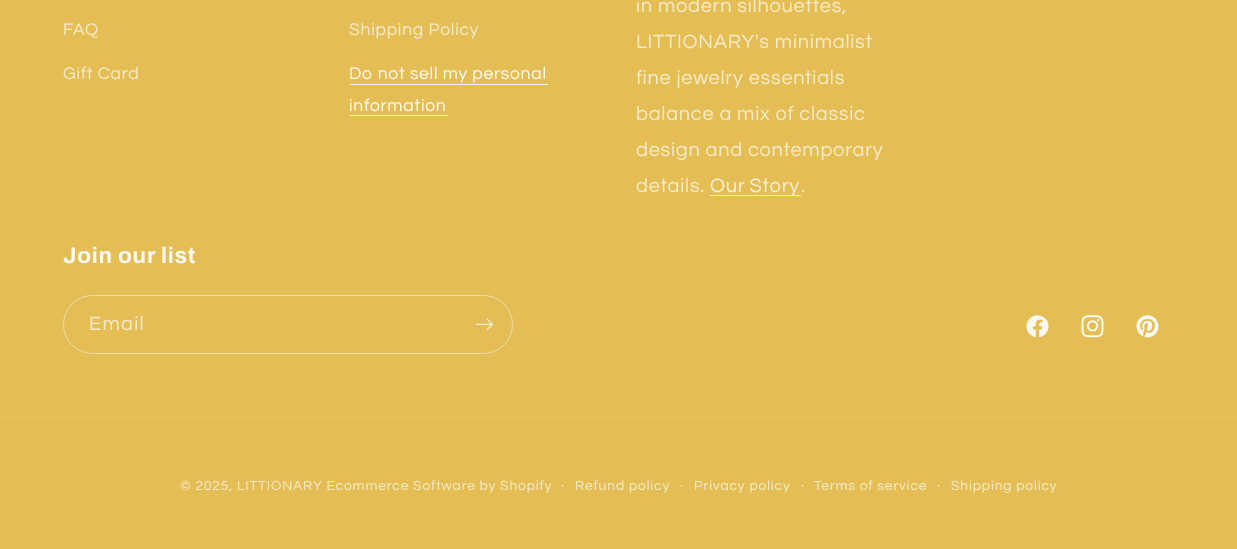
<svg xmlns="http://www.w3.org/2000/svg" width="1237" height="549">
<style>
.a{font:17.5px Questrial;letter-spacing:0.75px;fill:#f4eaca}
.b{font:17.5px Questrial;letter-spacing:0.75px;fill:#f9f8f1}
.c{font:20px Questrial;letter-spacing:0.75px;fill:#f4eaca}
.d{font:20px Questrial;letter-spacing:0.75px;fill:#f6efda}
.e{font:bold 22.5px Archivo;letter-spacing:0.75px;fill:#f9f8f1}
.f{font:20px Questrial;letter-spacing:1.25px;fill:#f4eaca}
.g{font:13.75px Questrial;letter-spacing:0.9px;fill:#f4eaca}
.h{font:15px Questrial;letter-spacing:0.9px;fill:#f4eaca}
</style>
<rect width="100%" height="100%" fill="#e4be55"/>
<path fill="#f9f8f1" d="M350 84h198v1H350z"/>
<path fill="#f9f8f1" d="M350 115h98v1H350z"/>
<path fill="#f6efda" d="M710 195h91v1H710z"/>
<rect fill="none" stroke="#f0deab" x="63.5" y="295.5" width="449" height="58" rx="29"/>
<image href="1.png" x="475" y="318" width="18" height="13"/>
<image href="2.png" x="1026" y="315" width="23" height="23"/>
<image href="3.png" x="1081" y="315" width="23" height="23"/>
<image href="4.png" x="1136" y="315" width="23" height="23"/>
<path fill="#e6c361" d="M0 416h1237v1H0z"/>
<text class="a" x="63" y="35">FAQ</text>
<text class="a" x="63" y="79">Gift Card</text>
<text class="a" x="349" y="35">Shipping Policy</text>
<text class="b" x="349" y="79">Do not sell my personal</text>
<text class="b" x="349" y="111">information</text>
<text class="c" x="636" y="12">in modern silhouettes,</text>
<text class="c" x="636" y="48">LITTIONARY's minimalist</text>
<text class="c" x="636" y="84">fine jewelry essentials</text>
<text class="c" x="636" y="120">balance a mix of classic</text>
<text class="c" x="636" y="156">design and contemporary</text>
<text class="c" x="636" y="192">details.</text>
<text class="d" x="710" y="192" word-spacing="-1">Our Story</text>
<text class="c" x="801" y="192">.</text>
<text class="e" x="63" y="263">Join our list</text>
<text class="f" x="89" y="330">Email</text>
<text class="g" x="180" y="490">© 2025, LITTIONARY Ecommerce Software by Shopify</text>
<text class="h" x="561" y="490">·</text>
<text class="g" x="575" y="490">Refund policy</text>
<text class="h" x="680" y="490">·</text>
<text class="g" x="694" y="490">Privacy policy</text>
<text class="h" x="801" y="490">·</text>
<text class="g" x="814" y="490">Terms of service</text>
<text class="h" x="937" y="490">·</text>
<text class="g" x="951" y="490">Shipping policy</text>
</svg>
